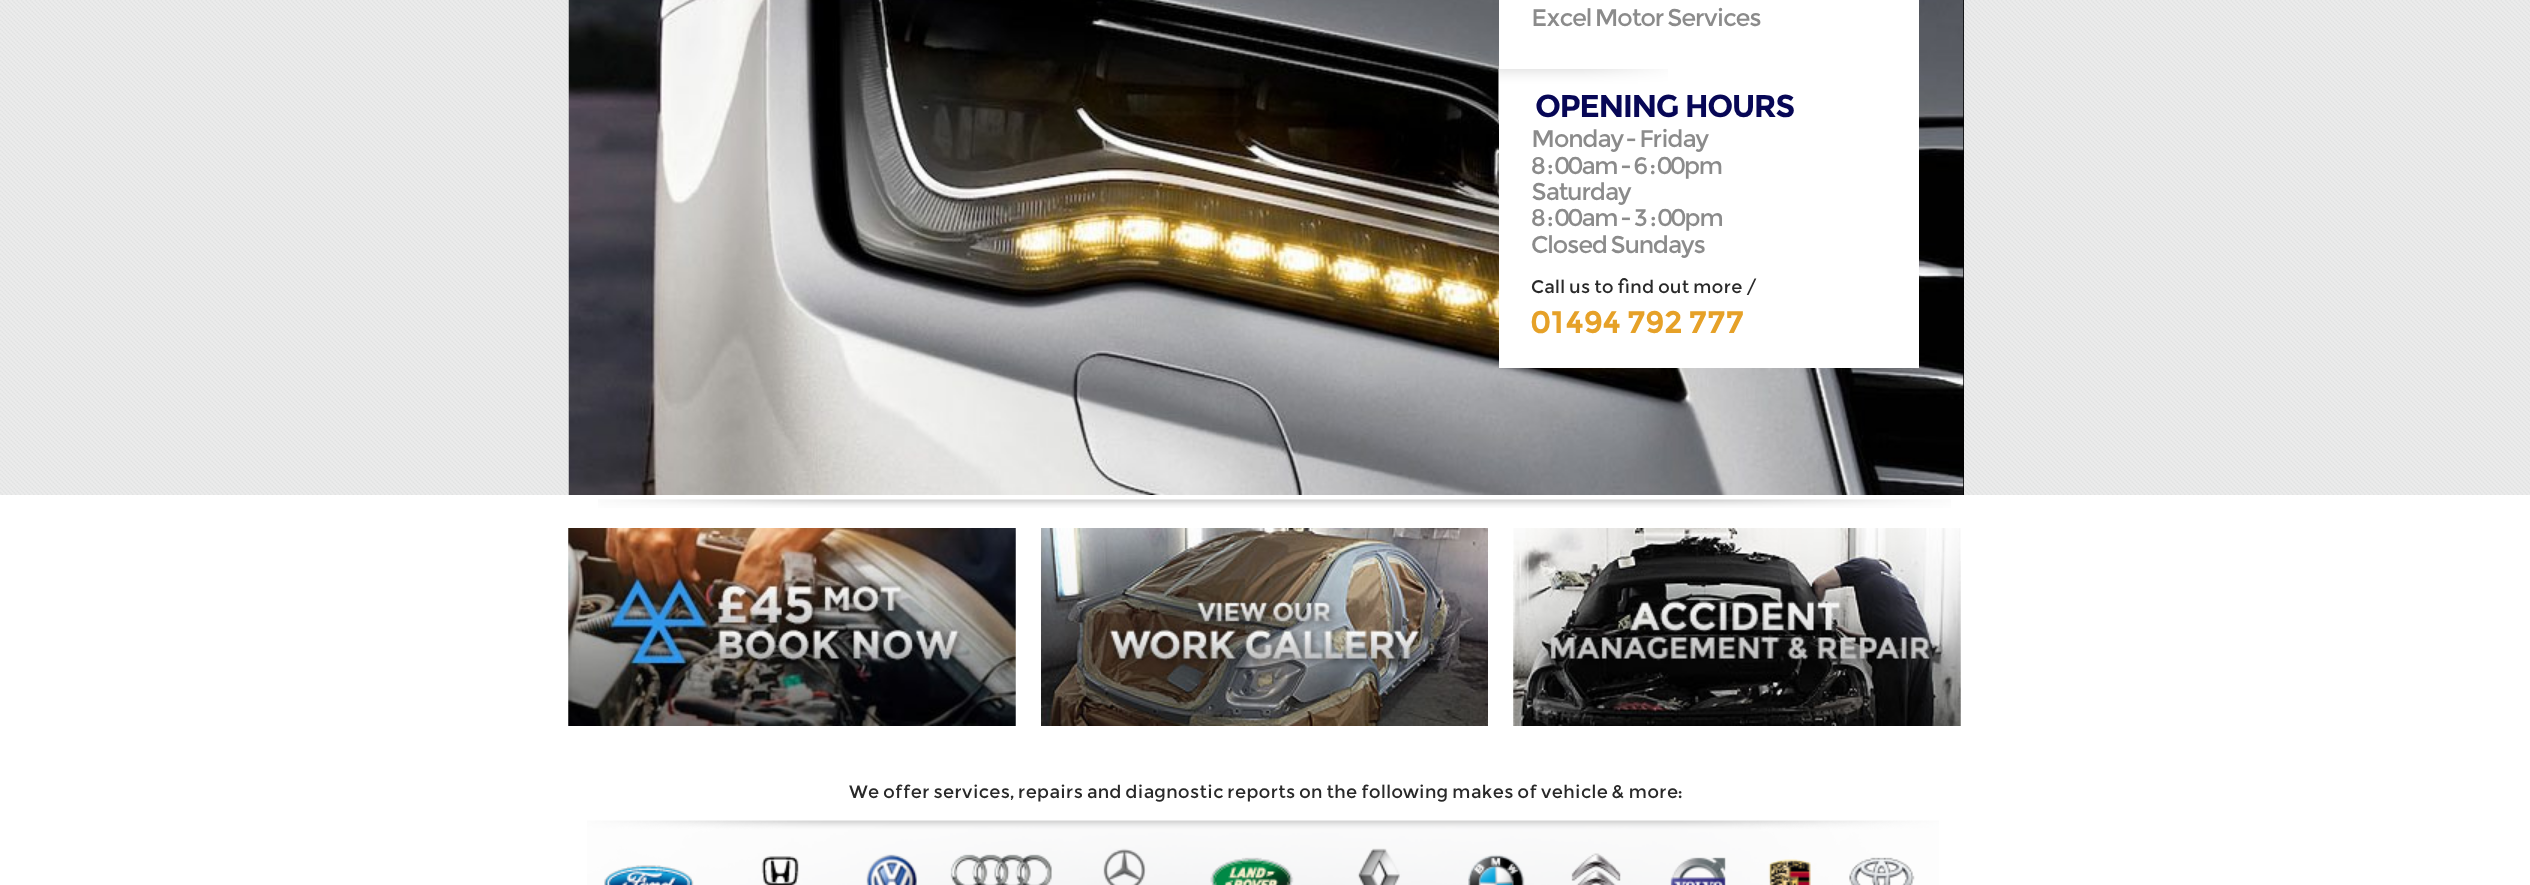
<svg xmlns="http://www.w3.org/2000/svg" width="2530" height="885">
<style>
.a{font:24px Montserrat;letter-spacing:-1.5px;fill:#8b8b8b}
.b{font:bold 31.5px Montserrat;letter-spacing:-1.5px;fill:#070756}
.c{font:18px Montserrat;fill:#292929}
.d{font:bold 30px 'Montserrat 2';fill:#e6a128}
</style>
<rect width="100%" height="100%" fill="#fff"/>
<image href="1.png" x="0" y="0" width="2530" height="495"/>
<path fill="#000" d="M1963 0h1v495H1963z"/>
<image href="2.png" x="568" y="0" width="1396" height="495"/>
<path fill="#fff" d="M1499 0h420v368H1499z"/>
<image href="3.png" x="1498" y="69" width="170" height="51"/>
<image href="4.png" x="598" y="499" width="1353" height="9"/>
<image href="5.png" x="568" y="528" width="448" height="198"/>
<image href="6.png" x="568" y="528" width="448" height="198"/>
<image href="7.png" x="1041" y="528" width="447" height="198"/>
<image href="8.png" x="1513" y="528" width="448" height="198"/>
<image href="9.png" x="1513" y="561" width="448" height="165"/>
<image href="10.png" x="587" y="820" width="1352" height="65"/>
<text class="a" x="1531" y="26">Excel Motor Services</text>
<text class="b" x="1535" y="117">OPENING HOURS</text>
<text class="a" x="1531" y="147">Monday - Friday</text>
<text class="a" x="1531" y="174">8 : 00am - 6 : 00pm</text>
<text class="a" x="1531" y="200">Saturday</text>
<text class="a" x="1531" y="226">8 : 00am - 3 : 00pm</text>
<text class="a" x="1531" y="253">Closed Sundays</text>
<text class="c" x="1531" y="293">Call us to find out more /</text>
<text class="d" x="1531" y="333">01494 792 777</text>
<text class="c" x="849" y="798">We offer services, repairs and diagnostic reports on the following makes of vehicle &amp; more:</text>
</svg>
